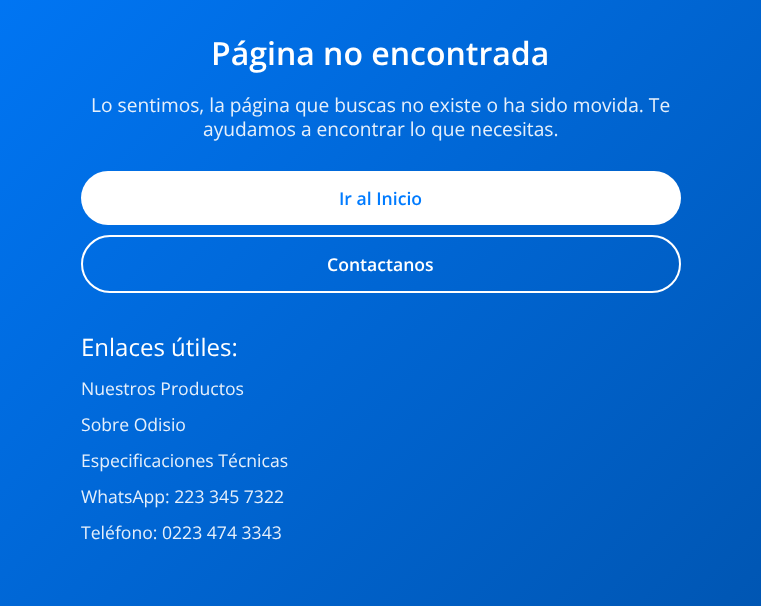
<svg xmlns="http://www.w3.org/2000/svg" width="761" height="606">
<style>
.a{font:600 32px Open Sans;fill:#fff}
.b{font:19.2px Open Sans;fill:#e6f0fb}
.c{font:600 17.6px Open Sans;fill:#007bff}
.d{font:600 17.6px Open Sans;fill:#fff}
.e{font:24px Open Sans;fill:#fff}
.f{font:17.6px Open Sans;fill:#e6f0fb}
</style>
<defs>
<linearGradient id="g1" gradientUnits="userSpaceOnUse" x1="-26" y1="-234" x2="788" y2="580"><stop offset="0" stop-color="#007bff"/><stop offset="1" stop-color="#0056b3"/></linearGradient>
</defs>
<rect width="100%" height="100%" fill="#fff"/>
<path fill="url(#g1)" d="M0 0h761v606H0z"/>
<rect fill="#fff" x="81" y="171" width="600" height="54" rx="27"/>
<rect fill="none" stroke="#fff" stroke-width="2" x="82" y="236" width="598" height="56" rx="28"/>
<text class="a" x="211" y="65">Página no encontrada</text>
<text class="b" x="91" y="112">Lo sentimos, la página que buscas no existe o ha sido movida. Te</text>
<text class="b" x="203" y="136">ayudamos a encontrar lo que necesitas.</text>
<text class="c" x="339" y="205">Ir al Inicio</text>
<text class="d" x="327" y="271">Contactanos</text>
<text class="e" x="81" y="356">Enlaces útiles:</text>
<text class="f" x="81" y="395">Nuestros Productos</text>
<text class="f" x="81" y="431">Sobre Odisio</text>
<text class="f" x="81" y="467">Especificaciones Técnicas</text>
<text class="f" x="81" y="503">WhatsApp: 223 345 7322</text>
<text class="f" x="81" y="539">Teléfono: 0223 474 3343</text>
</svg>
